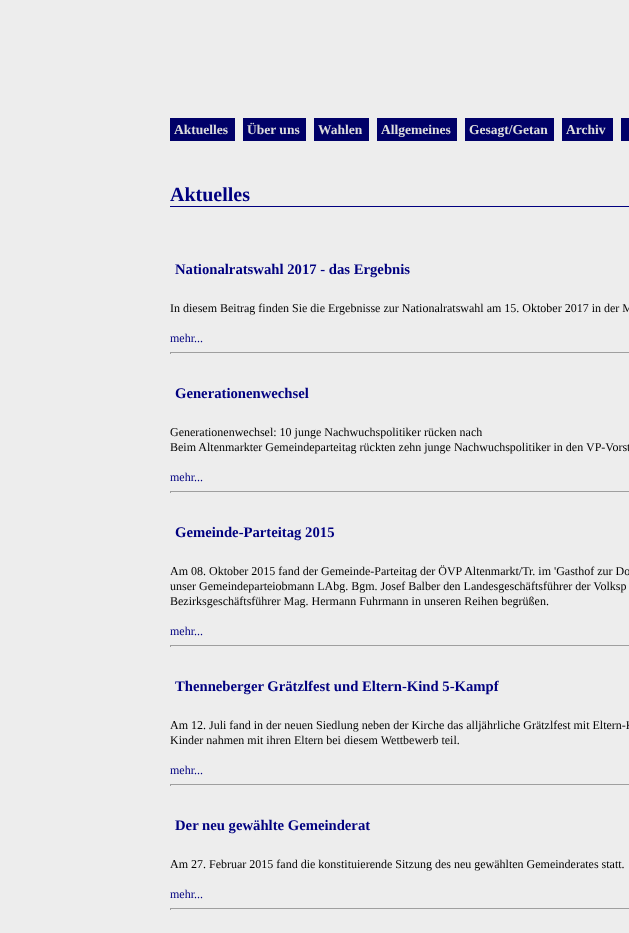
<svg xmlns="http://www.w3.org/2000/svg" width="629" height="933">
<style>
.a{font:bold 13.5px Liberation Serif;fill:#ddd}
.b{font:bold 20px Liberation Serif;fill:#000080}
.c{font:bold 14.7px Liberation Serif;fill:#000080}
.d{font:12px Liberation Serif;fill:#000}
.e{font:12px Liberation Serif;fill:#000080}
</style>
<rect width="100%" height="100%" fill="#ededed"/>
<path fill="#000068" d="M170 118h65v23H170z"/>
<path fill="#000068" d="M243 118h63v23H243z"/>
<path fill="#000068" d="M314 118h55v23H314z"/>
<path fill="#000068" d="M377 118h80v23H377z"/>
<path fill="#000068" d="M465 118h89v23H465z"/>
<path fill="#000068" d="M562 118h51v23H562z"/>
<path fill="#000068" d="M621 118h8v23H621z"/>
<path fill="#000080" d="M170 206h459v1H170z"/>
<path fill="#9f9f9f" d="M170 352h459v1H170z"/>
<path fill="#9f9f9f" d="M170 352h1v2H170z"/>
<path fill="#9f9f9f" d="M170 491h459v1H170z"/>
<path fill="#9f9f9f" d="M170 491h1v2H170z"/>
<path fill="#9f9f9f" d="M170 645h459v1H170z"/>
<path fill="#9f9f9f" d="M170 645h1v2H170z"/>
<path fill="#9f9f9f" d="M170 784h459v1H170z"/>
<path fill="#9f9f9f" d="M170 784h1v2H170z"/>
<path fill="#9f9f9f" d="M170 908h459v1H170z"/>
<path fill="#9f9f9f" d="M170 908h1v2H170z"/>
<text class="a" x="174" y="134">Aktuelles</text>
<text class="a" x="247" y="134">Über uns</text>
<text class="a" x="318" y="134">Wahlen</text>
<text class="a" x="381" y="134">Allgemeines</text>
<text class="a" x="469" y="134">Gesagt/Getan</text>
<text class="a" x="566" y="134">Archiv</text>
<text class="b" x="170" y="201">Aktuelles</text>
<text class="c" x="175" y="274">Nationalratswahl 2017 - das Ergebnis</text>
<text class="d" x="170" y="312">In diesem Beitrag finden Sie die Ergebnisse zur Nationalratswahl am 15. Oktober 2017 in der M</text>
<text class="e" x="170" y="342">mehr...</text>
<text class="c" x="175" y="398">Generationenwechsel</text>
<text class="d" x="170" y="436">Generationenwechsel: 10 junge Nachwuchspolitiker rücken nach</text>
<text class="d" x="170" y="451">Beim Altenmarkter Gemeindeparteitag rückten zehn junge Nachwuchspolitiker in den VP-Vorst</text>
<text class="e" x="170" y="481">mehr...</text>
<text class="c" x="175" y="537">Gemeinde-Parteitag 2015</text>
<text class="d" x="170" y="575">Am 08. Oktober 2015 fand der Gemeinde-Parteitag der ÖVP Altenmarkt/Tr. im 'Gasthof zur Do</text>
<text class="d" x="170" y="590">unser Gemeindeparteiobmann LAbg. Bgm. Josef Balber den Landesgeschäftsführer der Volksp</text>
<text class="d" x="170" y="605">Bezirksgeschäftsführer Mag. Hermann Fuhrmann in unseren Reihen begrüßen.</text>
<text class="e" x="170" y="635">mehr...</text>
<text class="c" x="175" y="691">Thenneberger Grätzlfest und Eltern-Kind 5-Kampf</text>
<text class="d" x="170" y="729">Am 12. Juli fand in der neuen Siedlung neben der Kirche das alljährliche Grätzlfest mit Eltern-K</text>
<text class="d" x="170" y="744">Kinder nahmen mit ihren Eltern bei diesem Wettbewerb teil.</text>
<text class="e" x="170" y="774">mehr...</text>
<text class="c" x="175" y="830">Der neu gewählte Gemeinderat</text>
<text class="d" x="170" y="868">Am 27. Februar 2015 fand die konstituierende Sitzung des neu gewählten Gemeinderates statt.</text>
<text class="e" x="170" y="898">mehr...</text>
</svg>
